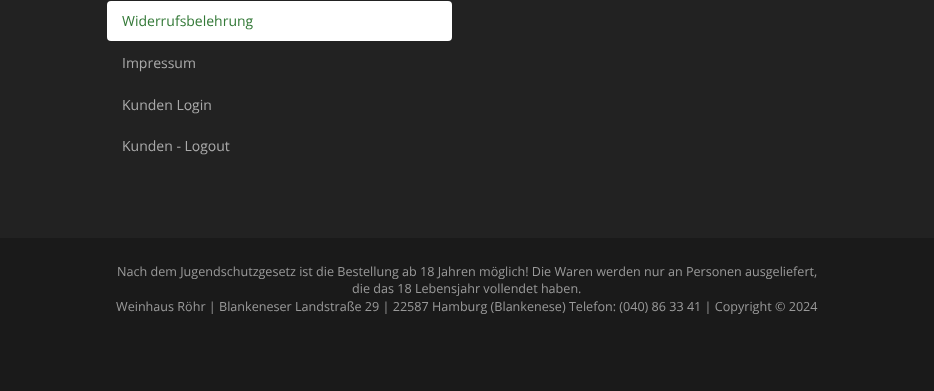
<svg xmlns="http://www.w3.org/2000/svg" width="934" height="391">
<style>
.a{font:14px Open Sans;fill:#337937}
.b{font:14px Open Sans;fill:#aaa}
.c{font:12.6px Open Sans;fill:#999}
</style>
<rect width="100%" height="100%" fill="#222"/>
<rect fill="#fff" x="107" y="1" width="345" height="40" rx="4"/>
<path fill="#1a1a1a" d="M0 238h934v153H0z"/>
<text class="a" x="122" y="26">Widerrufsbelehrung</text>
<text class="b" x="122" y="68">Impressum</text>
<text class="b" x="122" y="110">Kunden Login</text>
<text class="b" x="122" y="151">Kunden - Logout</text>
<text class="c" x="117" y="276">Nach dem Jugendschutzgesetz ist die Bestellung ab 18 Jahren möglich! Die Waren werden nur an Personen ausgeliefert,</text>
<text class="c" x="352" y="293">die das 18 Lebensjahr vollendet haben.</text>
<text class="c" x="116" y="311">Weinhaus Röhr | Blankeneser Landstraße 29 | 22587 Hamburg (Blankenese) Telefon: (040) 86 33 41 | Copyright © 2024</text>
</svg>
